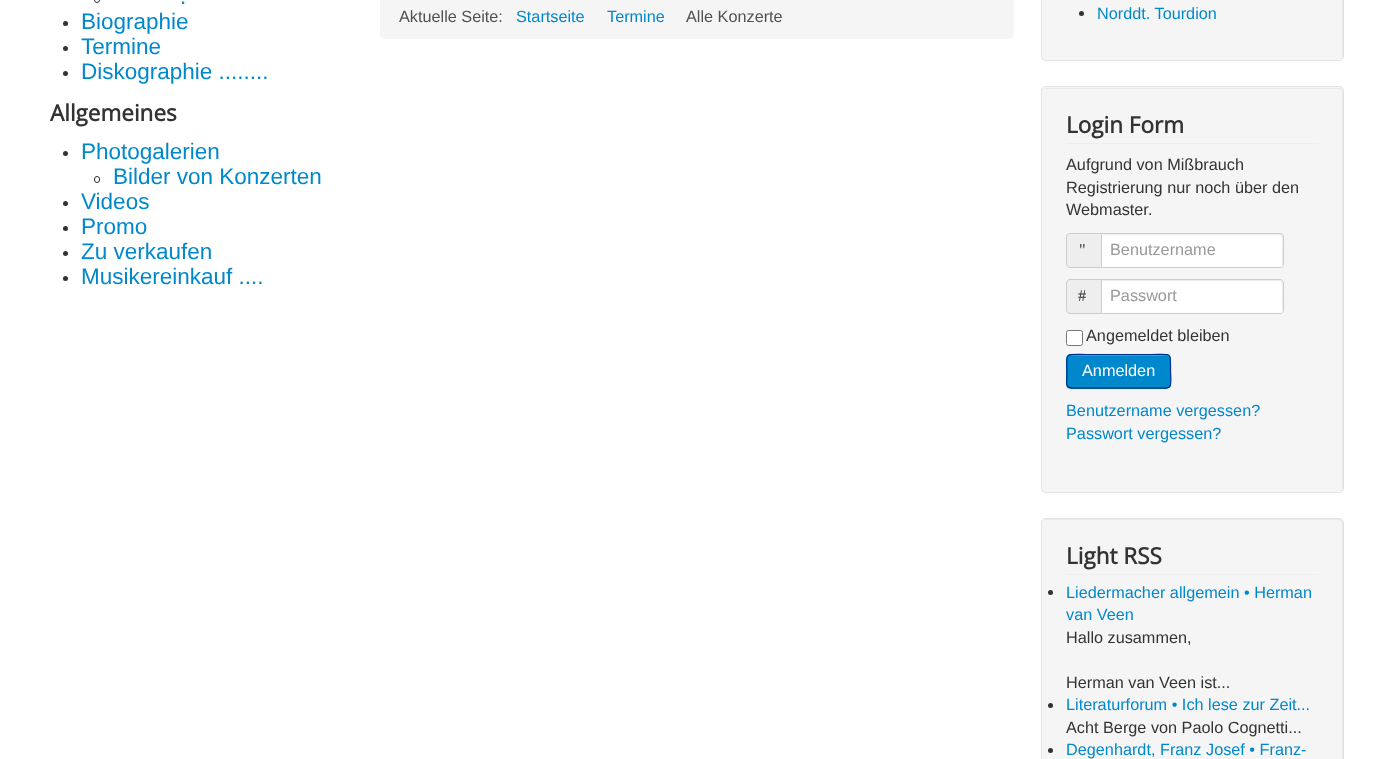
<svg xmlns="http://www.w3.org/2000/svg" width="1393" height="759">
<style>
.a{font:22.5px Liberation Sans;fill:#08c}
.b{font:bold 22.5px Open Sans;fill:#333}
.c{font:16.25px Liberation Sans;fill:#515151}
.d{font:16.25px Liberation Sans;fill:#08c}
.e{font:16.25px Liberation Sans;fill:#333}
.f{font:16.25px Liberation Serif;fill:#333}
.g{font:16.25px Liberation Sans;fill:#999}
.h{font:16.25px Liberation Sans;fill:#fff}
</style>
<rect width="100%" height="100%" fill="#fff"/>
<rect fill="none" stroke="#333" x="94.5" y="-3.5" width="5" height="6" rx="2.5"/>
<circle fill="#333" cx="65.5" cy="23.5" r="2.5"/>
<circle fill="#333" cx="65.5" cy="48.5" r="2.5"/>
<circle fill="#333" cx="65.5" cy="73.5" r="2.5"/>
<circle fill="#333" cx="65.5" cy="153.5" r="2.5"/>
<rect fill="none" stroke="#333" x="94.5" y="176.5" width="5" height="6" rx="2.5"/>
<circle fill="#333" cx="65.5" cy="203.5" r="2.5"/>
<circle fill="#333" cx="65.5" cy="228.5" r="2.5"/>
<circle fill="#333" cx="65.5" cy="253.5" r="2.5"/>
<circle fill="#333" cx="65.5" cy="278.5" r="2.5"/>
<rect fill="#f5f5f5" x="380" y="-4" width="634" height="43" rx="5"/>
<rect fill="#f5f5f5" x="1041" y="-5" width="303" height="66" rx="5"/>
<path fill="#e9e9e9" d="M1046-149h293c2 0 3 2 3 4v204c1-1 1-2 1-3v-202c0-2-2-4-4-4h-292c-1 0-3 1-3 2z"/>
<rect fill="none" stroke="#e3e3e3" x="1041.5" y="-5.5" width="302" height="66" rx="4.5"/>
<circle fill="#333" cx="1081.5" cy="13.5" r="2.5"/>
<rect fill="#f5f5f5" x="1041" y="86" width="303" height="407" rx="5"/>
<path fill="#e9e9e9" d="M1046 89h293c2 0 3 1 3 3v398c1-1 1-2 1-3v-395c0-2-2-4-4-4h-292c-1 0-2 1-3 1z"/>
<rect fill="none" stroke="#e3e3e3" x="1041.5" y="86.5" width="302" height="406" rx="4.5"/>
<path fill="#eee" d="M1066 143h253v1H1066z"/>
<path fill="#eee" stroke="#ccc" d="M1070 233.5h32.5v34h-32.5c-2 0-3.5-1.5-3.5-3.5v-27c0-2 1.5-3.5 3.5-3.5z"/>
<path fill="#fff" d="M1101 233h179c2 0 4 2 4 4v27c0 2-2 4-4 4h-179z"/>
<path fill="#ececec" d="M1103 234v1h177c3 0 2 11 2 12v19c1-1 1-2 1-2v-28c0-1-1-2-3-2z"/>
<path fill="none" stroke="#ccc" d="M1101.5 233.5h178.5c2 0 3.5 1.5 3.5 3.5v27c0 2-1.5 3.5-3.5 3.5h-178.5z"/>
<path fill="#eee" stroke="#ccc" d="M1070 279.5h32.5v34h-32.5c-2 0-3.5-1.5-3.5-3.5v-27c0-2 1.5-3.5 3.5-3.5z"/>
<path fill="#fff" d="M1101 279h179c2 0 4 2 4 4v27c0 2-2 4-4 4h-179z"/>
<path fill="#ececec" d="M1103 280v1h177c3 0 2 11 2 12v20c0-1 1-2 1-3v-28c0-1-1-2-3-2z"/>
<path fill="none" stroke="#ccc" d="M1101.5 279.5h178.5c2 0 3.5 1.5 3.5 3.5v27c0 2-1.5 3.5-3.5 3.5h-178.5z"/>
<rect fill="#fff" stroke="#767676" x="1066.5" y="330.5" width="16" height="15" rx="2"/>
<rect fill="#0000000d" filter="blur(1px)" x="1066" y="355" width="105" height="35" rx="5"/>
<rect fill="#08c" x="1066" y="354" width="105" height="35" rx="5"/>
<path fill="#33a0d6" d="M1071 356h95c2 0 4 2 4 4c0-9-16-5-20-5h-62c-4 0-20-4-20 5c0-2 1-4 3-4z"/>
<path fill="none" stroke="#001641" stroke-width="1.2" d="M1169.5 387l-3 1h-95.5l-3-1"/>
<path fill="none" stroke="#002f8d" stroke-width="1.2" d="M1068 387c-2.5-3-1-8.5-1-11.5c0-24-4.5-21 20-21h63.5c22 0 20-3.5 20 16.5c0 3.5 1.5 13.5-1 16"/>
<rect fill="#f5f5f5" x="1041" y="518" width="303" height="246" rx="5"/>
<path fill="#e9e9e9" d="M1046 520h293c2 0 3 2 3 4v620c1-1 1-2 1-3v-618c0-2-2-4-4-4h-292c-1 0-3 1-3 2z"/>
<rect fill="none" stroke="#e3e3e3" x="1041.5" y="518.5" width="302" height="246" rx="4.5"/>
<path fill="#eee" d="M1066 574h253v1H1066z"/>
<circle fill="#333" cx="1050.5" cy="592.5" r="2.5"/>
<circle fill="#333" cx="1050.5" cy="705.5" r="2.5"/>
<circle fill="#333" cx="1050.5" cy="750.5" r="2.5"/>
<text class="a" x="180" y="4">.</text>
<text class="a" x="81" y="29">Biographie</text>
<text class="a" x="81" y="54">Termine</text>
<text class="a" x="81" y="79">Diskographie ........</text>
<text class="b" x="50" y="121">Allgemeines</text>
<text class="a" x="81" y="159">Photogalerien</text>
<text class="a" x="113" y="184">Bilder von Konzerten</text>
<text class="a" x="81" y="209">Videos</text>
<text class="a" x="81" y="234">Promo</text>
<text class="a" x="81" y="259">Zu verkaufen</text>
<text class="a" x="81" y="284">Musikereinkauf ....</text>
<text class="c" x="399" y="22">Aktuelle Seite:</text>
<text class="d" x="516" y="22">Startseite</text>
<text class="d" x="607" y="22">Termine</text>
<text class="c" x="686" y="22">Alle Konzerte</text>
<text class="d" x="1097" y="19">Norddt. Tourdion</text>
<text class="b" x="1066" y="133">Login Form</text>
<text class="e" x="1066" y="170">Aufgrund von Mißbrauch</text>
<text class="e" x="1066" y="193">Registrierung nur noch über den</text>
<text class="e" x="1066" y="215">Webmaster.</text>
<text class="f" x="1079" y="255">"</text>
<text class="g" x="1110" y="255">Benutzername</text>
<text class="f" x="1078" y="301">#</text>
<text class="g" x="1110" y="301">Passwort</text>
<text class="e" x="1086" y="341">Angemeldet bleiben</text>
<text class="h" x="1082" y="376">Anmelden</text>
<text class="d" x="1066" y="416">Benutzername vergessen?</text>
<text class="d" x="1066" y="439">Passwort vergessen?</text>
<text class="b" x="1066" y="564">Light RSS</text>
<text class="d" x="1066" y="598">Liedermacher allgemein • Herman</text>
<text class="d" x="1066" y="620">van Veen</text>
<text class="e" x="1066" y="643">Hallo zusammen,</text>
<text class="e" x="1066" y="688">Herman van Veen ist...</text>
<text class="d" x="1066" y="710">Literaturforum • Ich lese zur Zeit...</text>
<text class="e" x="1066" y="733">Acht Berge von Paolo Cognetti...</text>
<text class="d" x="1066" y="755">Degenhardt, Franz Josef • Franz-</text>
</svg>
